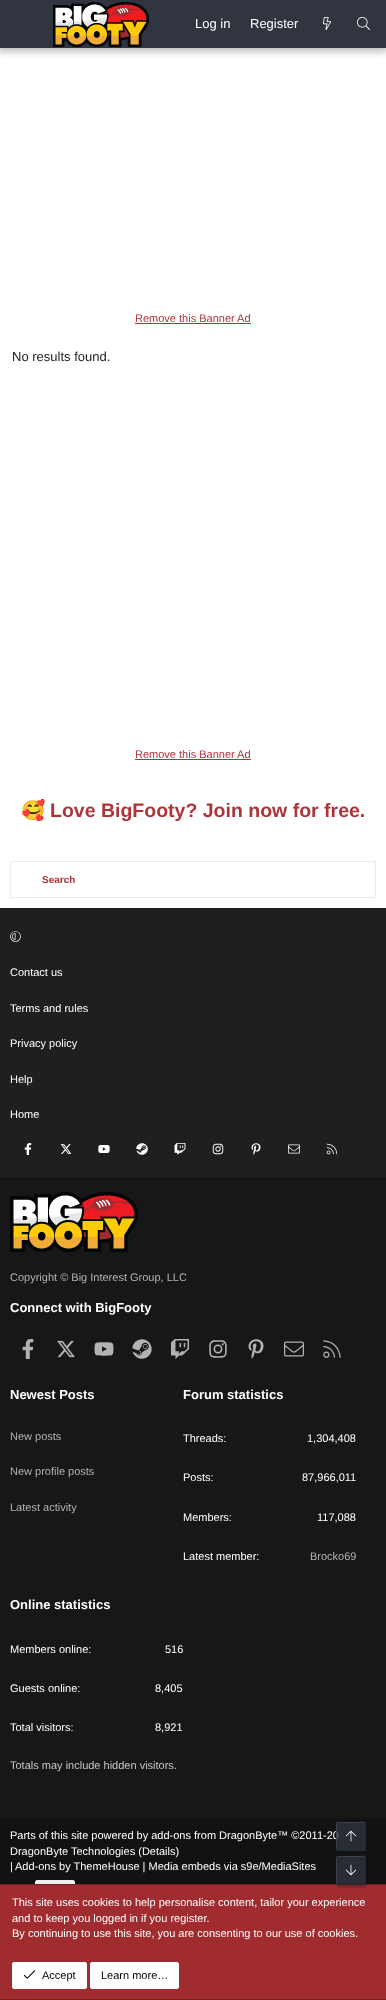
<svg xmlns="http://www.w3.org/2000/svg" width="386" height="2000">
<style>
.a{font:13px Liberation Sans;fill:#fff}
.b{font:11px Liberation Sans;fill:#ad3438}
.c{font:13px Liberation Sans;fill:#1c1c1c}
.d{font:bold 19.5px Noto Color Emoji;fill:#ad3438}
.e{font:bold 19.5px Liberation Sans;fill:#ad3438}
.f{font:bold 10px Liberation Sans;fill:#ad3438}
.g{font:11px Liberation Sans;fill:#fff}
.h{font:11px Liberation Sans;fill:#b2b2b2}
.i{font:bold 13px Liberation Sans;fill:#fff}
.j{font:11px Liberation Sans;fill:#c7c7c7}
.k{font:11px Liberation Sans;fill:#000}
</style>
<defs>
<clipPath id="clip1"><path d="M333 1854h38v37h-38zm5 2h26c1 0 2 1 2 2v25c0 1-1 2-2 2h-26c-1 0-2-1-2-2v-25c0-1 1-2 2-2z" clip-rule="evenodd"/></clipPath>
</defs>
<rect width="100%" height="100%" fill="#fff"/>
<path fill="#0000004d" filter="blur(4px)" d="M-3 -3h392v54H-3z"/>
<path fill="#303540" d="M0 0h386v48H0z"/>
<image href="1.png" x="53" y="2" width="96" height="45"/>
<image href="2.png" x="323" y="17" width="8" height="13"/>
<image href="3.png" x="357" y="17" width="13" height="13"/>
<path fill="#ad3438" d="M135 323h116v1H135z"/>
<path fill="#ad3438" d="M135 759h116v1H135z"/>
<path fill="none" stroke="#ebebeb" d="M10.5 861.5h365v36H10.5z"/>
<path fill="#1f1f1f" d="M0 908h386v269H0z"/>
<image href="4.png" x="10" y="931" width="11" height="11"/>
<image href="5.png" x="24" y="1143" width="8" height="12"/>
<image href="6.png" x="60" y="1144" width="12" height="10"/>
<image href="7.png" x="98" y="1145" width="12" height="8"/>
<image href="8.png" x="136" y="1143" width="12" height="12"/>
<image href="9.png" x="174" y="1143" width="12" height="12"/>
<image href="10.png" x="212" y="1143" width="12" height="12"/>
<image href="11.png" x="251" y="1143" width="10" height="12"/>
<image href="12.png" x="288" y="1144" width="12" height="10"/>
<image href="13.png" x="326" y="1143" width="12" height="12"/>
<path fill="#171717" d="M0 1177h386v641H0z"/>
<image href="14.png" x="10" y="1192" width="128" height="60"/>
<image href="15.png" x="22" y="1339" width="12" height="20"/>
<image href="16.png" x="57" y="1340" width="18" height="18"/>
<image href="17.png" x="94" y="1342" width="20" height="14"/>
<image href="18.png" x="132" y="1339" width="20" height="20"/>
<image href="19.png" x="170" y="1339" width="20" height="20"/>
<image href="20.png" x="209" y="1340" width="18" height="18"/>
<image href="21.png" x="248" y="1339" width="16" height="20"/>
<image href="22.png" x="284" y="1341" width="20" height="16"/>
<image href="23.png" x="323" y="1340" width="18" height="18"/>
<path fill="#121212" d="M0 1818h386v66H0z"/>
<path fill="#efefef" d="M37 1880h36c1 0 2 1 2 2v18h-40v-18c0-1 1-2 2-2z"/>
<path fill="#a02c30" d="M0 1885h386v114H0z"/>
<path fill="#782124" d="M0 1884h386v1H0z"/>
<g clip-path="url(#clip1)">
<rect fill="#00000040" filter="blur(1px)" x="337" y="1858" width="30" height="29" rx="2"/>
</g>
<rect fill="#303540bf" x="336" y="1856" width="30" height="29" rx="2"/>
<path fill="none" stroke="#252931" d="M365 1857c1 1 .5 5 .5 5v17c0 6.5 .5 5.5-6 5.5h-17c-2 0-4.5 1-5.5-.5"/>
<path fill="none" stroke="#3b414e" d="M337 1884c-1-1-.5-5-.5-5v-17c0-6.5-.5-5.5 6-5.5h17c2 0 4.5-1 5.5 .5"/>
<image href="25.png" x="345" y="1864" width="12" height="12"/>
<path fill="#782124" d="M0 1999h386v1H0z"/>
<rect fill="#fff" stroke="#fff" x="12.5" y="1962.5" width="74" height="26" rx="1.5"/>
<image href="26.png" x="23" y="1970" width="13" height="9"/>
<rect fill="#fff" stroke="#fff" x="90.5" y="1962.5" width="88" height="26" rx="1.5"/>
<text class="a" x="195" y="28">Log in</text>
<text class="a" x="250" y="28">Register</text>
<text class="b" x="135" y="322">Remove this Banner Ad</text>
<text class="c" x="12" y="361">No results found.</text>
<text class="b" x="135" y="758">Remove this Banner Ad</text>
<text class="d" x="21" y="817">🥰</text>
<text class="e" x="50" y="817">Love BigFooty? Join now for free.</text>
<text class="f" x="42" y="883">Search</text>
<text class="g" x="10" y="976">Contact us</text>
<text class="g" x="10" y="1012">Terms and rules</text>
<text class="g" x="10" y="1047">Privacy policy</text>
<text class="g" x="10" y="1083">Help</text>
<text class="g" x="10" y="1118">Home</text>
<text class="h" x="10" y="1281">Copyright © Big Interest Group, LLC</text>
<text class="i" x="10" y="1312">Connect with BigFooty</text>
<text class="i" x="10" y="1399">Newest Posts</text>
<text class="h" x="10" y="1440">New posts</text>
<text class="h" x="10" y="1475">New profile posts</text>
<text class="h" x="10" y="1511">Latest activity</text>
<text class="i" x="183" y="1399">Forum statistics</text>
<text class="g" x="183" y="1442">Threads:</text>
<text class="g" x="307" y="1442">1,304,408</text>
<text class="g" x="183" y="1481">Posts:</text>
<text class="g" x="302" y="1481">87,966,011</text>
<text class="g" x="183" y="1521">Members:</text>
<text class="g" x="317" y="1521">117,088</text>
<text class="g" x="183" y="1560">Latest member:</text>
<text class="h" x="310" y="1560">Brocko69</text>
<text class="i" x="10" y="1609">Online statistics</text>
<text class="g" x="10" y="1653">Members online:</text>
<text class="g" x="165" y="1653">516</text>
<text class="g" x="10" y="1692">Guests online:</text>
<text class="g" x="155" y="1692">8,405</text>
<text class="g" x="10" y="1731">Total visitors:</text>
<text class="g" x="155" y="1731">8,921</text>
<text class="j" x="10" y="1769">Totals may include hidden visitors.</text>
<text class="g" x="10" y="1839">Parts of this site powered by add-ons from DragonByte™ ©2011-20</text>
<text class="g" x="10" y="1855">DragonByte Technologies (Details)</text>
<text class="g" x="10" y="1870">|</text>
<text class="g" x="15" y="1870">Add-ons by ThemeHouse | Media embeds via s9e/MediaSites</text>
<rect fill="#303540bf" x="336" y="1822" width="30" height="29" rx="2"/>
<path fill="none" stroke="#252931" d="M365 1823c1 1 .5 5 .5 5v17c0 6.5 .5 5.5-6 5.5h-17c-2 0-4.5 1-5.5-.5"/>
<path fill="none" stroke="#3b414e" d="M337 1850c-1-1-.5-5-.5-5v-17c0-6.5-.5-5.5 6-5.5h17c2 0 4.5-1 5.5 .5"/>
<image href="24.png" x="345" y="1830" width="12" height="12"/>
<text class="g" x="12" y="1906">This site uses cookies to help personalise content, tailor your experience</text>
<text class="g" x="12" y="1922">and to keep you logged in if you register.</text>
<text class="g" x="12" y="1937">By continuing to use this site, you are consenting to our use of cookies.</text>
<text class="k" x="42" y="1979">Accept</text>
<text class="k" x="101" y="1979">Learn more…</text>
</svg>
